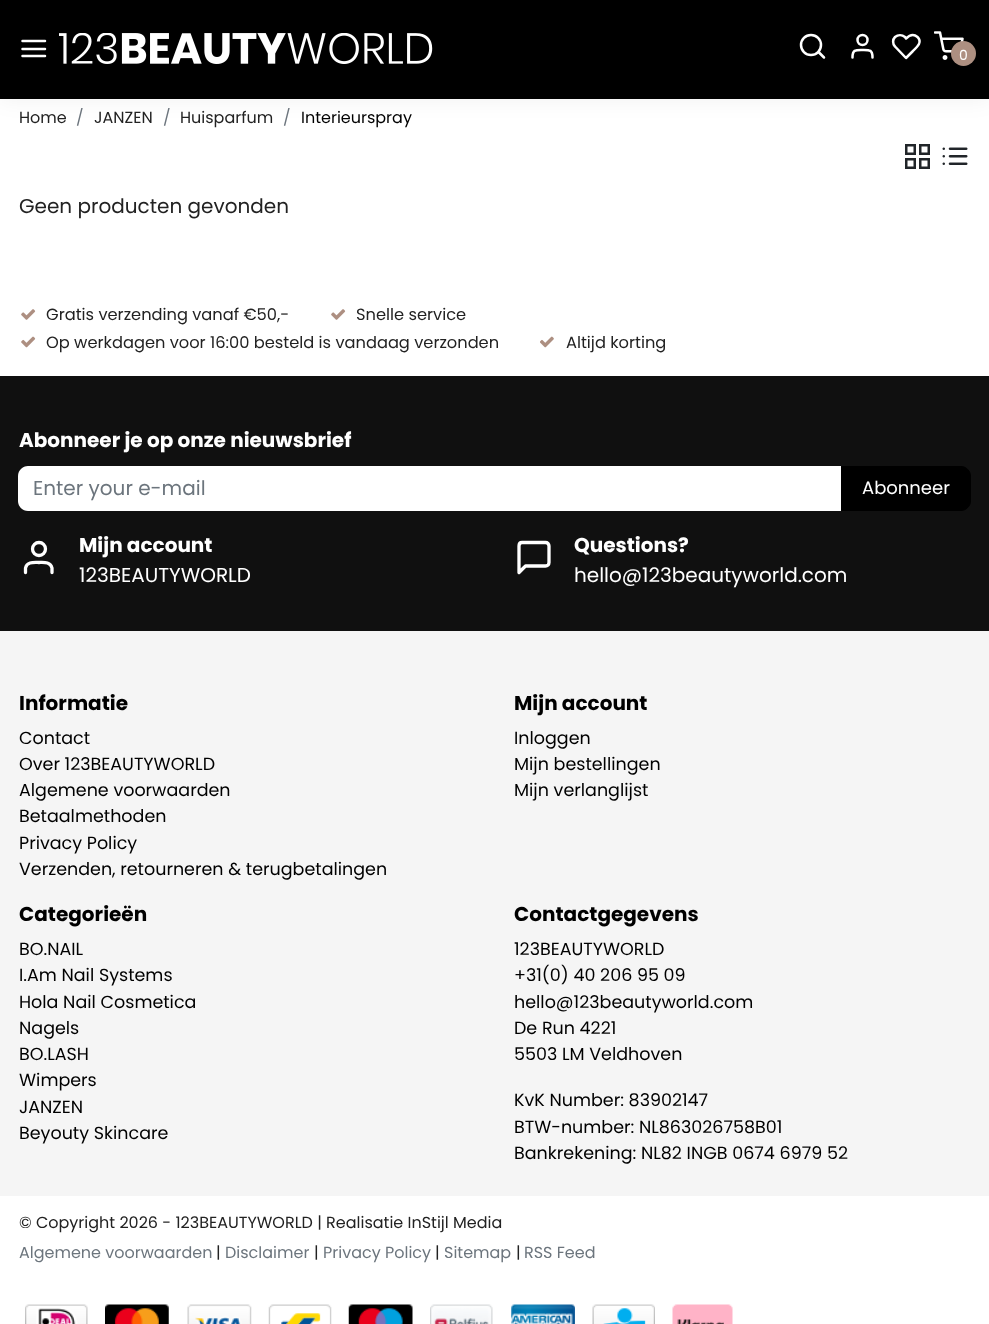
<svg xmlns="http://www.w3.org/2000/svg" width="989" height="1324">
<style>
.a{font:14px Poppins;fill:#fff}
.b{font:16px Poppins;fill:#222}
.c{font:16px Poppins;fill:#6c757d}
.d{font:16px Poppins;fill:#000}
.e{font:20px Poppins;fill:#222}
.f{font:16.25px Poppins;fill:#222}
.g{font:bold 20px Poppins;fill:#fff}
.h{font:20px Poppins;fill:#6c757d}
.i{font:18px Poppins;fill:#fff}
.j{font:20px Poppins;fill:#fff}
.k{font:bold 20px Poppins;fill:#000}
.l{font:17.5px Poppins;fill:#000}
</style>
<rect width="100%" height="100%" fill="#fff"/>
<path fill="#0000000d" filter="blur(10px)" d="M0 3h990v98H0z"/>
<path fill="#000" d="M0 0h989v99H0z"/>
<path fill="none" stroke="#fff" stroke-width="2.5" stroke-linecap="round" stroke-linejoin="round" d="M22.5 49h22.5m-22.5-8h22.5m-22.5 15h22.5"/>
<image href="1.png" x="59" y="33" width="374" height="31"/>
<circle fill="none" stroke="#fff" stroke-width="2.5" cx="811" cy="45" r="10"/>
<path fill="none" stroke="#fff" stroke-width="2.5" stroke-linecap="round" stroke-linejoin="round" d="M824 57.5l-5.5-5.5m54 5.5c0-8-3-7.5-10-7.5c-7 0-10-.5-10 7.5"/>
<circle fill="none" stroke="#fff" stroke-width="2.5" cx="862.5" cy="40" r="5"/>
<path fill="none" stroke="#fff" stroke-width="2.5" stroke-linecap="round" stroke-linejoin="round" d="M917.5 37c-4-3.5-8-2-11.5 1.5l-1-1.5c-3-2.5-7-2.5-10 0c-2.5 2.5-2.5 7 0 9.5l11 11.5l6.5-6.5c4-4 10.5-9 5-14.5z"/>
<image href="2.png" x="934" y="31" width="30" height="29"/>
<circle fill="#ad8f81" cx="963.5" cy="53.5" r="12.5"/>
<path fill="none" stroke="#212529" stroke-width="2.5" d="M906.25 145.25h8.5v8.5H906.25z"/>
<path fill="none" stroke="#212529" stroke-width="2.5" d="M920.25 145.25h8.5v8.5H920.25z"/>
<path fill="none" stroke="#212529" stroke-width="2.5" d="M920.25 159.25h8.5v8.5H920.25z"/>
<path fill="none" stroke="#212529" stroke-width="2.5" d="M906.25 159.25h8.5v8.5H906.25z"/>
<image href="3.png" x="942" y="147" width="26" height="18"/>
<image href="4.png" x="21" y="309" width="15" height="11"/>
<image href="4.png" x="331" y="309" width="15" height="11"/>
<image href="5.png" x="21" y="336" width="15" height="12"/>
<image href="6.png" x="540" y="336" width="14" height="12"/>
<path fill="#101010" d="M0 376h989v255H0z"/>
<path fill="#fff" d="M28 466h813v45h-813c-5.5 0-10-4.5-10-10v-25c0-5.5 4.5-10 10-10z"/>
<path fill="#000" stroke="#000" d="M841.5 466.5h119.5c5 0 9.5 4.5 9.5 9.5v25c0 5-4.5 9.5-9.5 9.5h-119.5z"/>
<path fill="none" stroke="#fff" stroke-width="3.3" stroke-linecap="round" stroke-linejoin="round" d="M52 572.5v-4.5c-1.5-6.5-8.5-5.5-13-5.5c-5 0-12-1-13.5 5.5v4.5"/>
<circle fill="none" stroke="#fff" stroke-width="3.3" cx="39" cy="549" r="6.5"/>
<path fill="none" stroke="#fff" stroke-width="3.3" stroke-linecap="round" stroke-linejoin="round" d="M549 562.5c0 2-1.5 3.5-3.5 3.5h-20l-6.5 6.5v-26.5c0-2 1-3.5 3-3.5h23.5c2 0 3.5 1.5 3.5 3.5z"/>
<path fill="#f5f5f5" d="M0 631h989v565H0z"/>
<image href="7.png" x="25" y="1304" width="63" height="20"/>
<image href="8.png" x="105" y="1304" width="64" height="20"/>
<image href="9.png" x="187" y="1304" width="65" height="20"/>
<image href="10.png" x="268" y="1304" width="64" height="20"/>
<image href="11.png" x="348" y="1304" width="65" height="20"/>
<image href="12.png" x="430" y="1304" width="63" height="20"/>
<image href="13.png" x="511" y="1304" width="64" height="20"/>
<image href="14.png" x="592" y="1304" width="63" height="20"/>
<image href="15.png" x="672" y="1304" width="61" height="20"/>
<text class="a" x="959" y="60">0</text>
<text class="b" x="19" y="123">Home</text>
<text class="c" x="76" y="123">/</text>
<text class="b" x="94" y="123">JANZEN</text>
<text class="c" x="163" y="123">/</text>
<text class="b" x="180" y="123">Huisparfum</text>
<text class="c" x="283" y="123">/</text>
<text class="d" x="301" y="123">Interieurspray</text>
<text class="e" x="19" y="213">Geen producten gevonden</text>
<text class="f" x="46" y="320">Gratis verzending vanaf €50,-</text>
<text class="f" x="356" y="320">Snelle service</text>
<text class="f" x="46" y="348">Op werkdagen voor 16:00 besteld is vandaag verzonden</text>
<text class="f" x="566" y="348">Altijd korting</text>
<text class="g" x="19" y="447">Abonneer je op onze nieuwsbrief</text>
<text class="h" x="33" y="495">Enter your e-mail</text>
<text class="i" x="862" y="494">Abonneer</text>
<text class="g" x="79" y="552">Mijn account</text>
<text class="j" x="79" y="582">123BEAUTYWORLD</text>
<text class="g" x="574" y="552">Questions?</text>
<text class="j" x="574" y="582">hello@123beautyworld.com</text>
<text class="k" x="19" y="710">Informatie</text>
<text class="l" x="19" y="744">Contact</text>
<text class="l" x="19" y="770">Over 123BEAUTYWORLD</text>
<text class="l" x="19" y="796">Algemene voorwaarden</text>
<text class="l" x="19" y="822">Betaalmethoden</text>
<text class="l" x="19" y="849">Privacy Policy</text>
<text class="l" x="19" y="875">Verzenden, retourneren &amp; terugbetalingen</text>
<text class="k" x="514" y="710">Mijn account</text>
<text class="l" x="514" y="744">Inloggen</text>
<text class="l" x="514" y="770">Mijn bestellingen</text>
<text class="l" x="514" y="796">Mijn verlanglijst</text>
<text class="k" x="19" y="921">Categorieën</text>
<text class="l" x="19" y="955">BO.NAIL</text>
<text class="l" x="19" y="981">I.Am Nail Systems</text>
<text class="l" x="19" y="1008">Hola Nail Cosmetica</text>
<text class="l" x="19" y="1034">Nagels</text>
<text class="l" x="19" y="1060">BO.LASH</text>
<text class="l" x="19" y="1086">Wimpers</text>
<text class="l" x="19" y="1113">JANZEN</text>
<text class="l" x="19" y="1139">Beyouty Skincare</text>
<text class="k" x="514" y="921">Contactgegevens</text>
<text class="l" x="514" y="955">123BEAUTYWORLD</text>
<text class="l" x="514" y="981">+31(0) 40 206 95 09</text>
<text class="l" x="514" y="1008">hello@123beautyworld.com</text>
<text class="l" x="514" y="1034">De Run 4221</text>
<text class="l" x="514" y="1060">5503 LM Veldhoven</text>
<text class="l" x="514" y="1106">KvK Number: 83902147</text>
<text class="l" x="514" y="1133">BTW-number: NL863026758B01</text>
<text class="l" x="514" y="1159">Bankrekening: NL82 INGB 0674 6979 52</text>
<text class="b" x="19" y="1228">© Copyright 2026 - 123BEAUTYWORLD | Realisatie InStijl Media</text>
<text class="c" x="19" y="1258">Algemene voorwaarden</text>
<text class="b" x="216" y="1258">|</text>
<text class="c" x="225" y="1258">Disclaimer</text>
<text class="b" x="314" y="1258">|</text>
<text class="c" x="323" y="1258">Privacy Policy</text>
<text class="b" x="435" y="1258">|</text>
<text class="c" x="444" y="1258">Sitemap</text>
<text class="b" x="516" y="1258">|</text>
<text class="c" x="524" y="1258">RSS Feed</text>
</svg>
